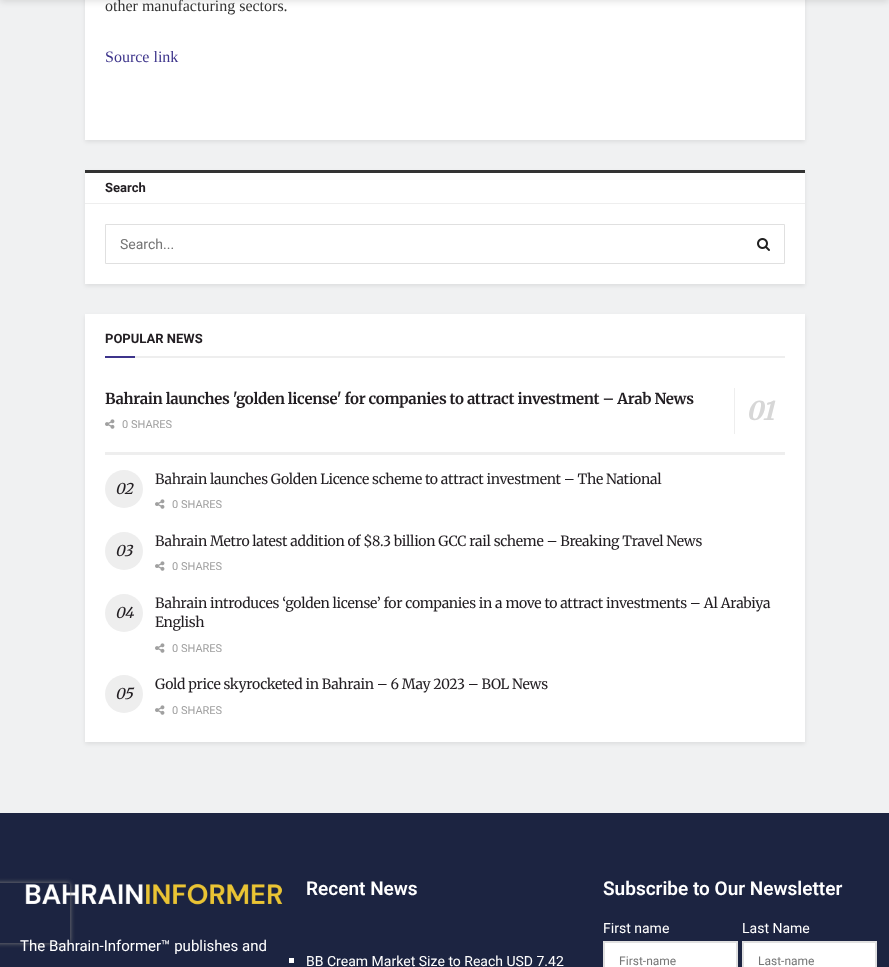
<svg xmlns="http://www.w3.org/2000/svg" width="889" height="967">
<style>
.a{font:16px Liberation Serif;fill:#333}
.b{font:16px Liberation Serif;fill:#3d348b}
.c{font:bold 13px Heebo;fill:#221e22}
.d{font:14px Heebo;fill:#757575}
.e{font:bold 15px Merriweather;letter-spacing:-0.3px;fill:#221e22}
.f{font:italic bold 26px Merriweather;letter-spacing:-0.3px;fill:#d7d7d7}
.g{font:11px Heebo;fill:#a0a0a0}
.h{font:14px Merriweather;letter-spacing:-0.28px;fill:#221e22}
.i{font:italic 15px Merriweather;letter-spacing:-0.28px;fill:#221e22}
.j{font:15px Roboto;fill:#fff}
.k{font:600 19px Roboto;fill:#fff}
.l{font:14px Heebo;fill:#fff}
.m{font:12px Heebo;fill:#757575}
</style>
<defs>
<clipPath id="clip1"><path d="M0 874h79v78h-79zm-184 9h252c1 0 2 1 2 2v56c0 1-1 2-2 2h-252c-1 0-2-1-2-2v-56c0-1 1-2 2-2z" clip-rule="evenodd"/></clipPath>
</defs>
<rect width="100%" height="100%" fill="#f0f1f2"/>
<path fill="#00000014" filter="blur(2px)" d="M85 -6h720v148H85z"/>
<path fill="#fff" d="M85 0h720v140H85z"/>
<path fill="#0000001a" filter="blur(3px)" d="M0 -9h889v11H0z"/>
<path fill="#00000014" filter="blur(2px)" d="M85 172h720v114H85z"/>
<path fill="#fff" d="M85 173h720v111H85z"/>
<path fill="#333" d="M85 170h720v3H85z"/>
<path fill="#eee" d="M85 203h720v1H85z"/>
<path fill="none" stroke="#e0e0e0" d="M105.5 224.5h679v39H105.5z"/>
<image href="1.png" x="757" y="238" width="13" height="13"/>
<path fill="#00000014" filter="blur(2px)" d="M85 316h720v428H85z"/>
<path fill="#fff" d="M85 314h720v428H85z"/>
<path fill="#eee" d="M135 356h650v2H135z"/>
<path fill="#3d348b" d="M105 356h30v2H105z"/>
<path fill="#eee" d="M105 452h680v3H105z"/>
<path fill="#eee" d="M734 388h1v46H734z"/>
<image href="2.png" x="105" y="419" width="10" height="10"/>
<circle fill="#eee" cx="124" cy="489" r="19"/>
<image href="2.png" x="155" y="499" width="10" height="10"/>
<circle fill="#eee" cx="124" cy="551" r="19"/>
<image href="2.png" x="155" y="561" width="10" height="10"/>
<circle fill="#eee" cx="124" cy="613" r="19"/>
<image href="2.png" x="155" y="643" width="10" height="10"/>
<circle fill="#eee" cx="124" cy="694" r="19"/>
<image href="2.png" x="155" y="705" width="10" height="10"/>
<path fill="#1c2441" d="M0 813h889v154H0z"/>
<image href="3.png" x="25" y="883" width="258" height="22"/>
<path fill="#fff" d="M289 958h5v5H289z"/>
<g clip-path="url(#clip1)">
<rect fill="#808080" filter="blur(2.5px)" x="-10" y="883" width="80" height="60" rx="2"/>
</g>
<path fill="#fff" stroke="#e0e0e0" stroke-width="2" d="M604 942h133v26H604z"/>
<path fill="#fff" stroke="#e0e0e0" stroke-width="2" d="M743 942h133v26H743z"/>
<text class="a" x="105" y="11">other manufacturing sectors.</text>
<text class="b" x="105" y="62">Source link</text>
<text class="c" x="105" y="192">Search</text>
<text class="d" x="120" y="249">Search...</text>
<text class="c" x="105" y="343">POPULAR NEWS</text>
<text class="e" x="105" y="404">Bahrain launches 'golden license' for companies to attract investment – Arab News</text>
<text class="f" x="746" y="420">01</text>
<text class="g" x="122" y="428">0 SHARES</text>
<text class="h" x="155" y="484">Bahrain launches Golden Licence scheme to attract investment – The National</text>
<text class="i" x="115" y="494">02</text>
<text class="g" x="172" y="508">0 SHARES</text>
<text class="i" x="115" y="556">03</text>
<text class="h" x="155" y="546">Bahrain Metro latest addition of $8.3 billion GCC rail scheme – Breaking Travel News</text>
<text class="g" x="172" y="570">0 SHARES</text>
<text class="i" x="115" y="618">04</text>
<text class="h" x="155" y="608">Bahrain introduces ‘golden license’ for companies in a move to attract investments – Al Arabiya</text>
<text class="h" x="155" y="627">English</text>
<text class="g" x="172" y="652">0 SHARES</text>
<text class="i" x="115" y="699">05</text>
<text class="h" x="155" y="689">Gold price skyrocketed in Bahrain – 6 May 2023 – BOL News</text>
<text class="g" x="172" y="714">0 SHARES</text>
<text class="j" x="20" y="951">The Bahrain-Informer™ publishes and</text>
<text class="k" x="306" y="895">Recent News</text>
<text class="l" x="306" y="966">BB Cream Market Size to Reach USD 7.42</text>
<text class="k" x="603" y="895">Subscribe to Our Newsletter</text>
<text class="l" x="603" y="933">First name</text>
<text class="m" x="619" y="965">First-name</text>
<text class="l" x="742" y="933">Last Name</text>
<text class="m" x="758" y="965">Last-name</text>
</svg>
